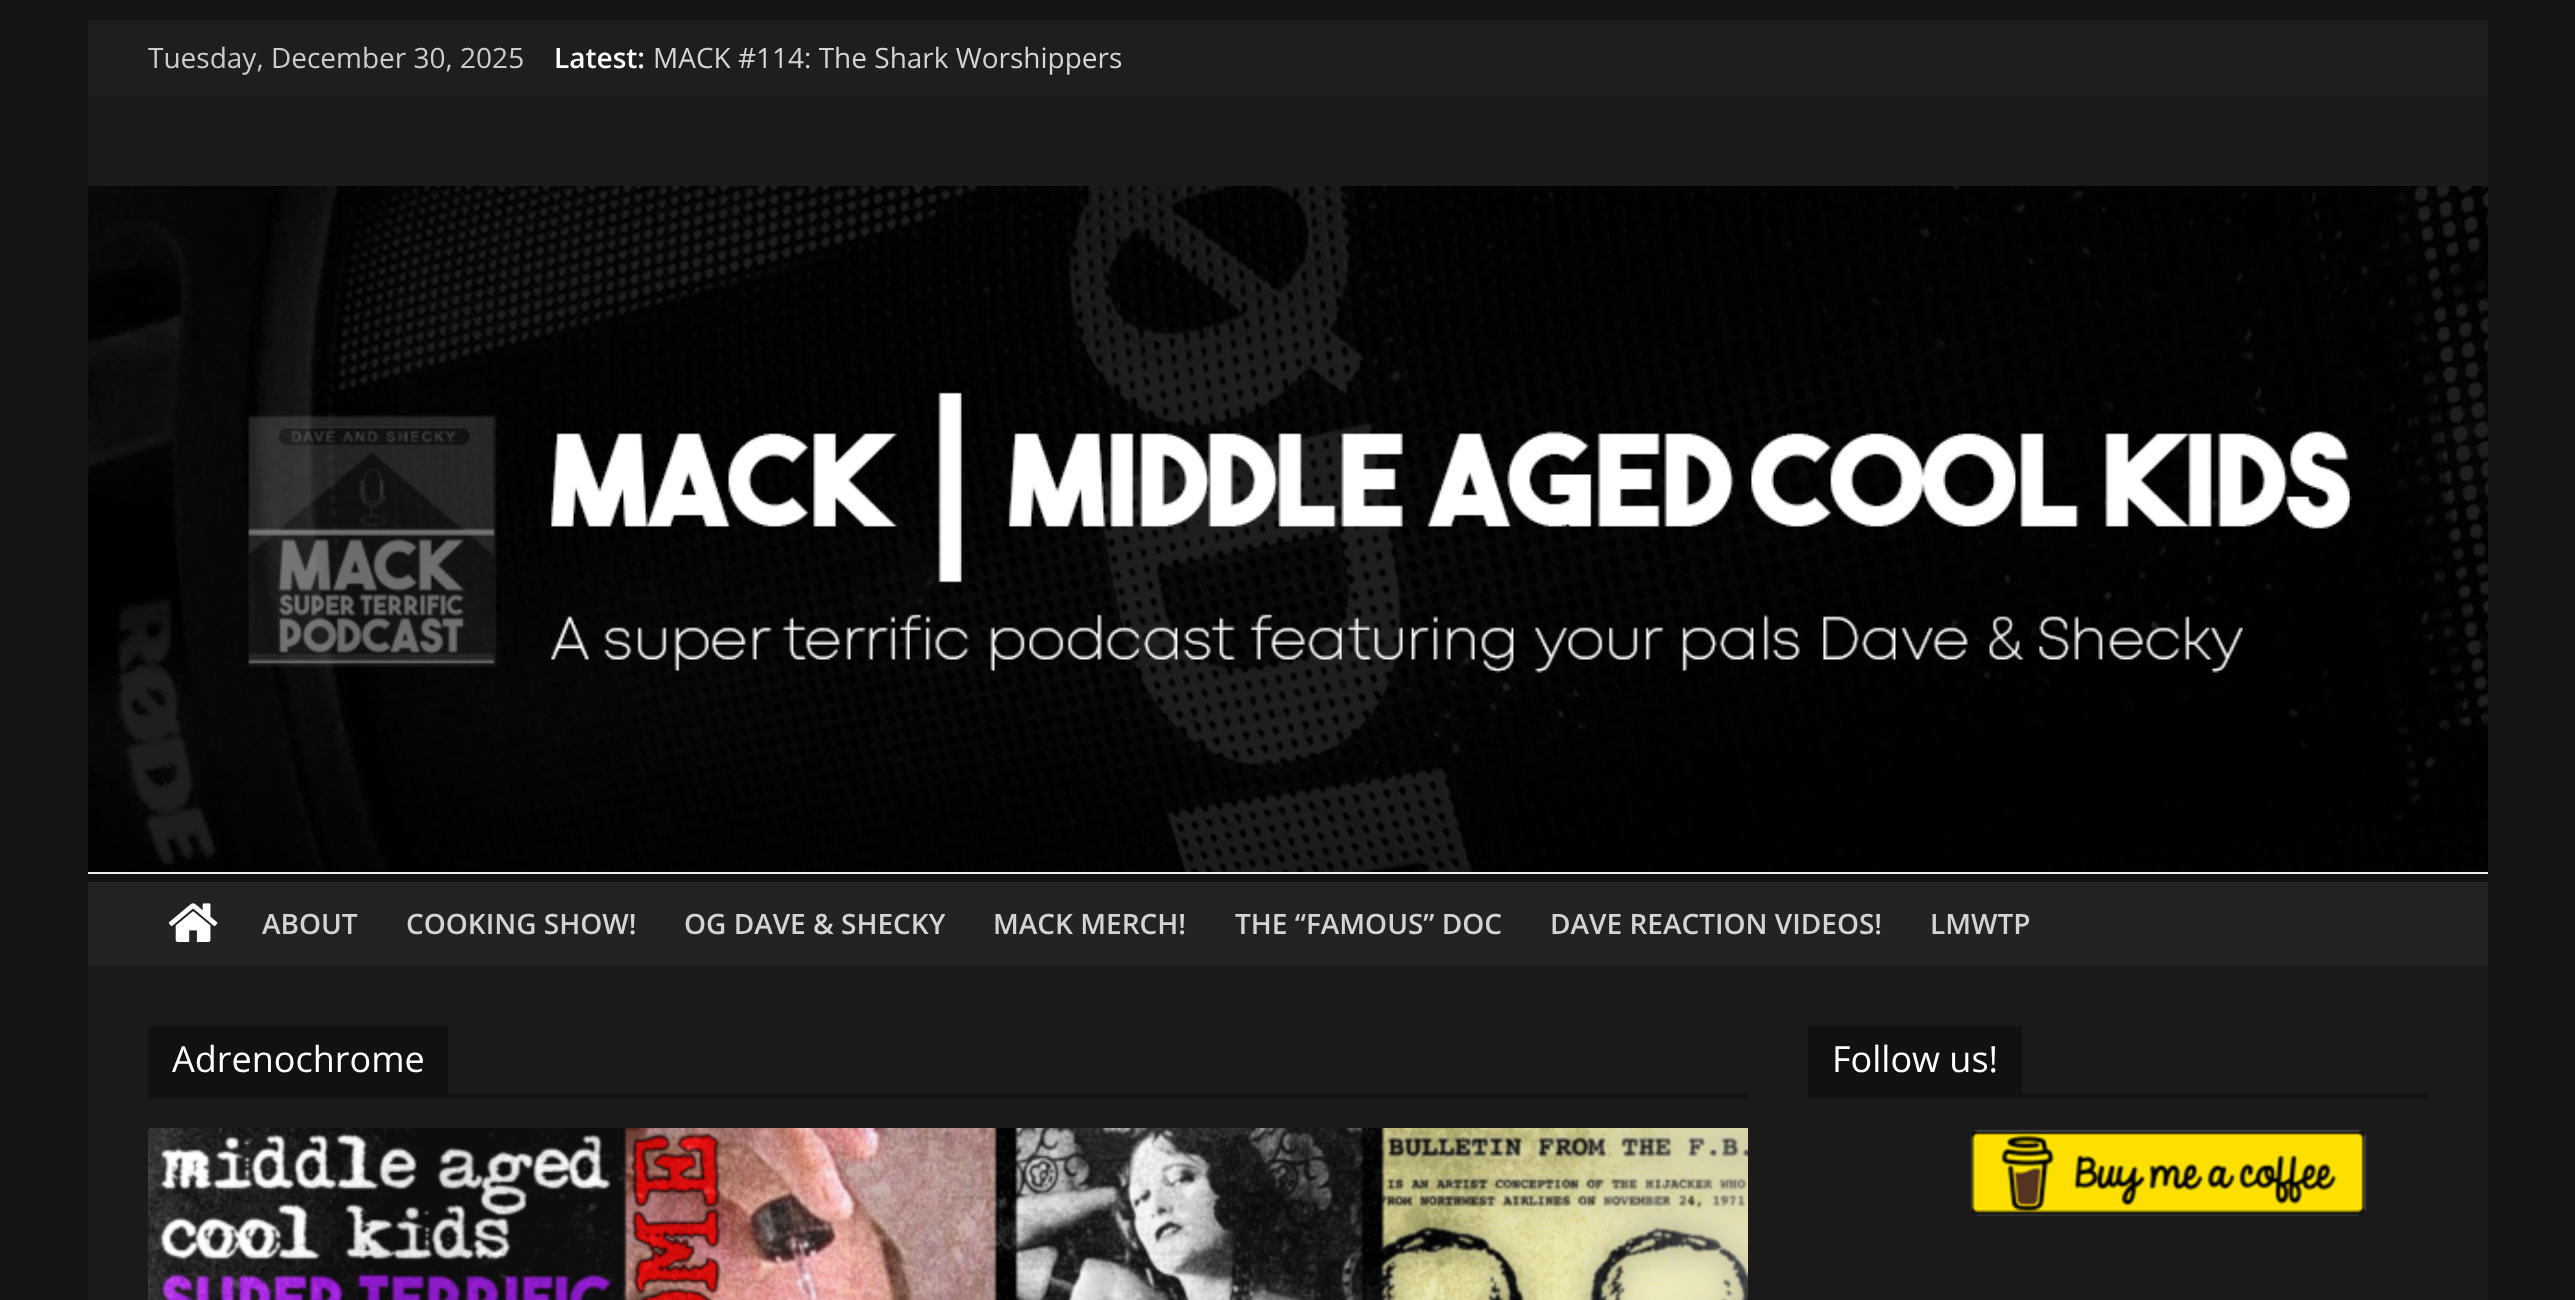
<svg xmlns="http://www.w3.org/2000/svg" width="2575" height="1300">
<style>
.a{font:28px Open Sans;fill:#ccc}
.b{font:600 28px Open Sans;fill:#fff}
.c{font:28px Open Sans;fill:#d5d3d3}
.d{font:600 28px Open Sans;fill:#d5d3d3}
.e{font:36px Open Sans;fill:#fff}
</style>
<rect width="100%" height="100%" fill="#151515"/>
<path fill="#1a1a1a" d="M88 96h2400v1204H88z"/>
<path fill="#1e1e1e" d="M88 20h2400v76H88z"/>
<image href="1.png" x="88" y="186" width="2400" height="686"/>
<path fill="#eaeaea" d="M88 872h2400v2H88z"/>
<path fill="#232323" d="M88 882h2400v84H88z"/>
<path fill="#111" d="M88 874h2400v8H88z"/>
<image href="2.png" x="168" y="903" width="50" height="39"/>
<path fill="#111" d="M148 1094h1600v4H148z"/>
<path fill="#111" d="M148 1026h300v68H148z"/>
<image href="3.png" x="148" y="1128" width="1600" height="172"/>
<path fill="#111" d="M1808 1094h620v4H1808z"/>
<path fill="#111" d="M1808 1026h214v68H1808z"/>
<image href="4.png" x="1969" y="1129" width="398" height="87"/>
<text class="a" x="148" y="68">Tuesday, December 30, 2025</text>
<text class="b" x="554" y="68">Latest:</text>
<text class="c" x="653" y="68">MACK #114: The Shark Worshippers</text>
<text class="d" x="262" y="934">ABOUT</text>
<text class="d" x="406" y="934">COOKING SHOW!</text>
<text class="d" x="684" y="934">OG DAVE &amp; SHECKY</text>
<text class="d" x="993" y="934">MACK MERCH!</text>
<text class="d" x="1235" y="934">THE “FAMOUS” DOC</text>
<text class="d" x="1550" y="934">DAVE REACTION VIDEOS!</text>
<text class="d" x="1930" y="934">LMWTP</text>
<text class="e" x="172" y="1072">Adrenochrome</text>
<text class="e" x="1832" y="1072">Follow us!</text>
</svg>
